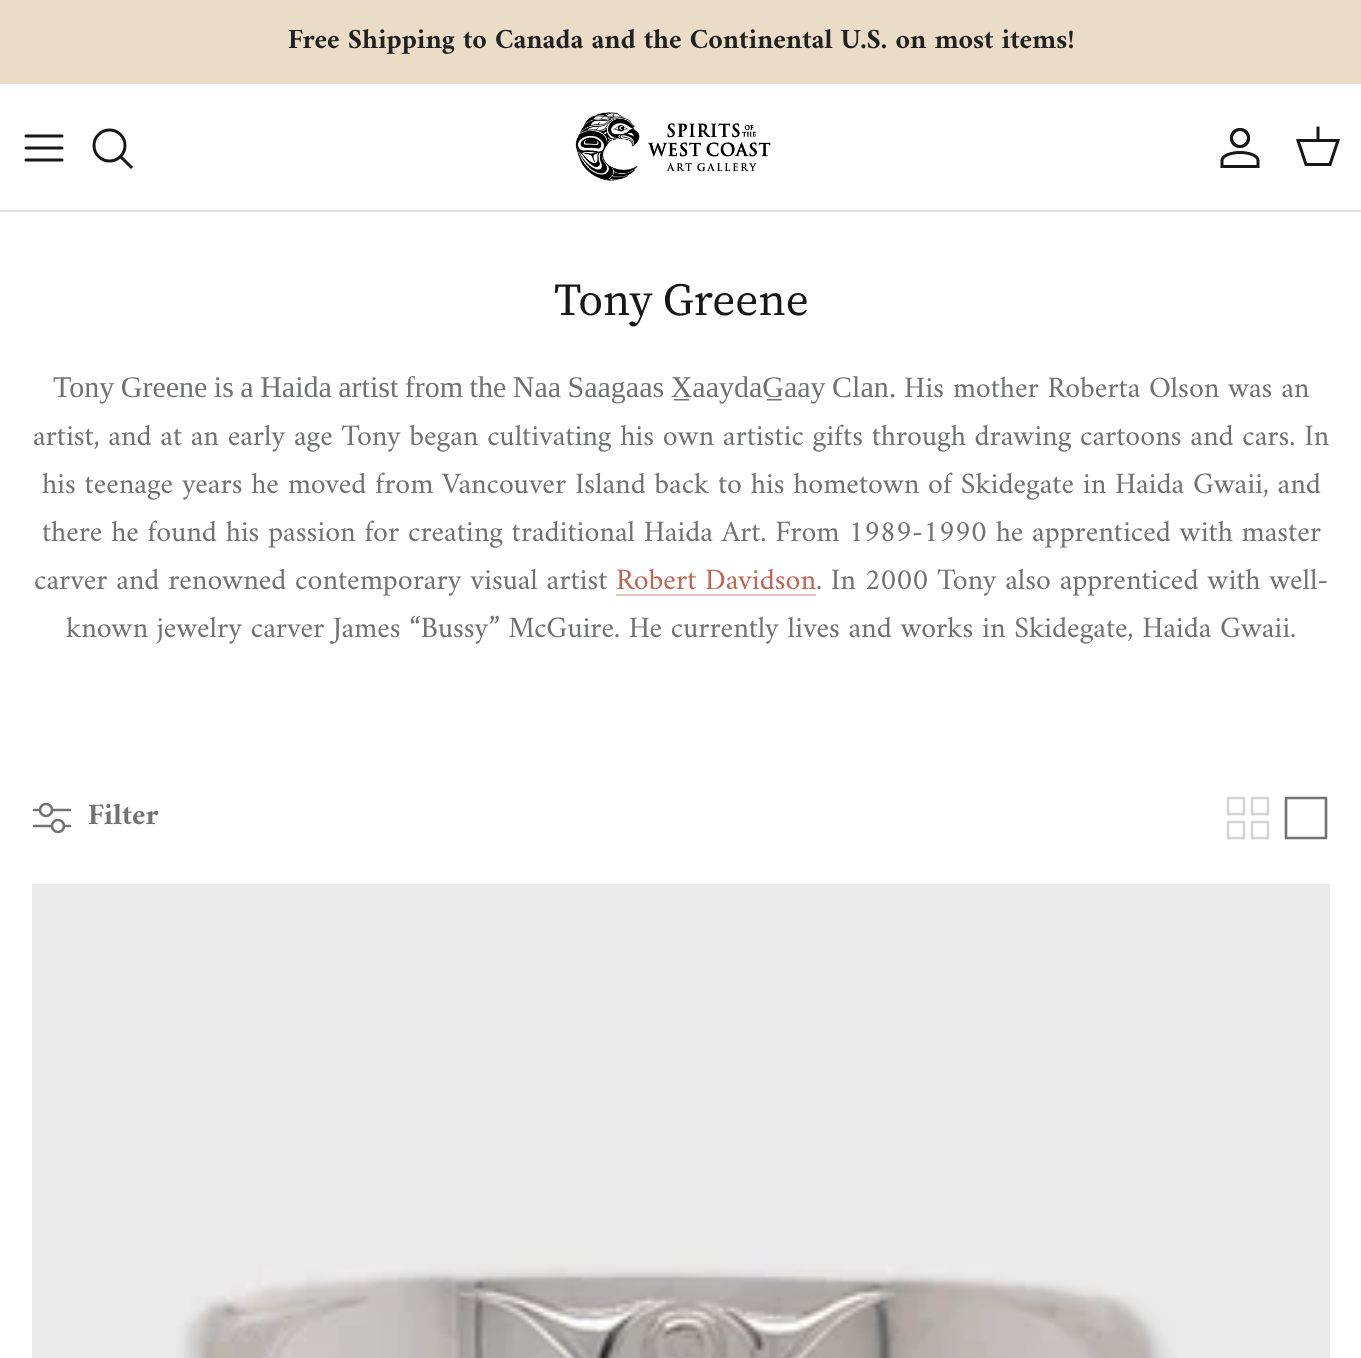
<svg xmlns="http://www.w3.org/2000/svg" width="1361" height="1358">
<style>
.a{font:bold 28px Amiri;fill:#212121}
.b{font:45.5px 'Source Serif 4';fill:#171717}
.c{font:30px Liberation Serif;fill:#707173}
.d{font:30px Amiri;fill:#707173}
.e{font:30px Amiri;fill:#c16452}
.f{font:bold 30px Amiri;fill:#707173}
</style>
<rect width="100%" height="100%" fill="#fff"/>
<path fill="#eadcc6" d="M0 0h1361v84H0z"/>
<path fill="#dfe3e8" d="M0 210h1361v2H0z"/>
<path fill="none" stroke="#171717" stroke-width="3" stroke-linecap="round" stroke-linejoin="round" d="M26 148h36m-36-12h36m-36 24h36"/>
<circle fill="none" stroke="#171717" stroke-width="3" cx="109.5" cy="145.5" r="15.5"/>
<path fill="none" stroke="#171717" stroke-width="3" stroke-linecap="square" d="M122 158l9 9"/>
<image href="1.png" x="575" y="112" width="196" height="69"/>
<image href="2.png" x="1220" y="128" width="40" height="40"/>
<path fill="none" stroke="#171717" stroke-width="3" d="M1298 140.5h40l-8 24h-24z"/>
<path fill="none" stroke="#171717" stroke-width="3" stroke-linecap="square" d="M1318 140v-12"/>
<path fill="#e6c1ba" d="M616 594h200v2H616z"/>
<path fill="none" stroke="#707173" stroke-width="2.5" stroke-linecap="round" stroke-linejoin="round" d="M34 810h36m-36 16h36"/>
<circle fill="#fff" stroke="#707173" stroke-width="2.5" cx="46" cy="810" r="6"/>
<circle fill="#fff" stroke="#707173" stroke-width="2.5" cx="58" cy="826" r="6"/>
<path fill="none" stroke="#d4d4d5" stroke-width="2.6" stroke-linecap="round" stroke-linejoin="round" d="M1228 798h16v16h-16v-16m24 0h16v16h-16v-16m0 24h16v16h-16v-16m-24 0h16v16h-16v-16"/>
<path fill="none" stroke="#707173" stroke-width="2.6" stroke-linecap="round" stroke-linejoin="round" d="M1286 798h40v40h-40v-40"/>
<image href="3.png" x="32" y="884" width="1298" height="474"/>
<text class="a" x="288" y="48">Free Shipping to Canada and the Continental U.S. on most items!</text>
<text class="b" x="554" y="315">Tony Greene</text>
<text class="c" x="53" y="397" word-spacing="-1">Tony Greene is a Haida artist from the Naa Saagaas X̲aaydaG̲aay Clan.</text>
<text class="d" x="904" y="397">His mother Roberta Olson was an</text>
<text class="d" x="33" y="445">artist, and at an early age Tony began cultivating his own artistic gifts through drawing cartoons and cars. In</text>
<text class="d" x="42" y="493">his teenage years he moved from Vancouver Island back to his hometown of Skidegate in Haida Gwaii, and</text>
<text class="d" x="42" y="541">there he found his passion for creating traditional Haida Art. From 1989-1990 he apprenticed with master</text>
<text class="d" x="34" y="589">carver and renowned contemporary visual artist</text>
<text class="e" x="616" y="589">Robert Davidson</text>
<text class="d" x="816" y="589">. In 2000 Tony also apprenticed with well-</text>
<text class="d" x="66" y="637">known jewelry carver James “Bussy” McGuire. He currently lives and works in Skidegate, Haida Gwaii.</text>
<text class="f" x="88" y="824">Filter</text>
</svg>
